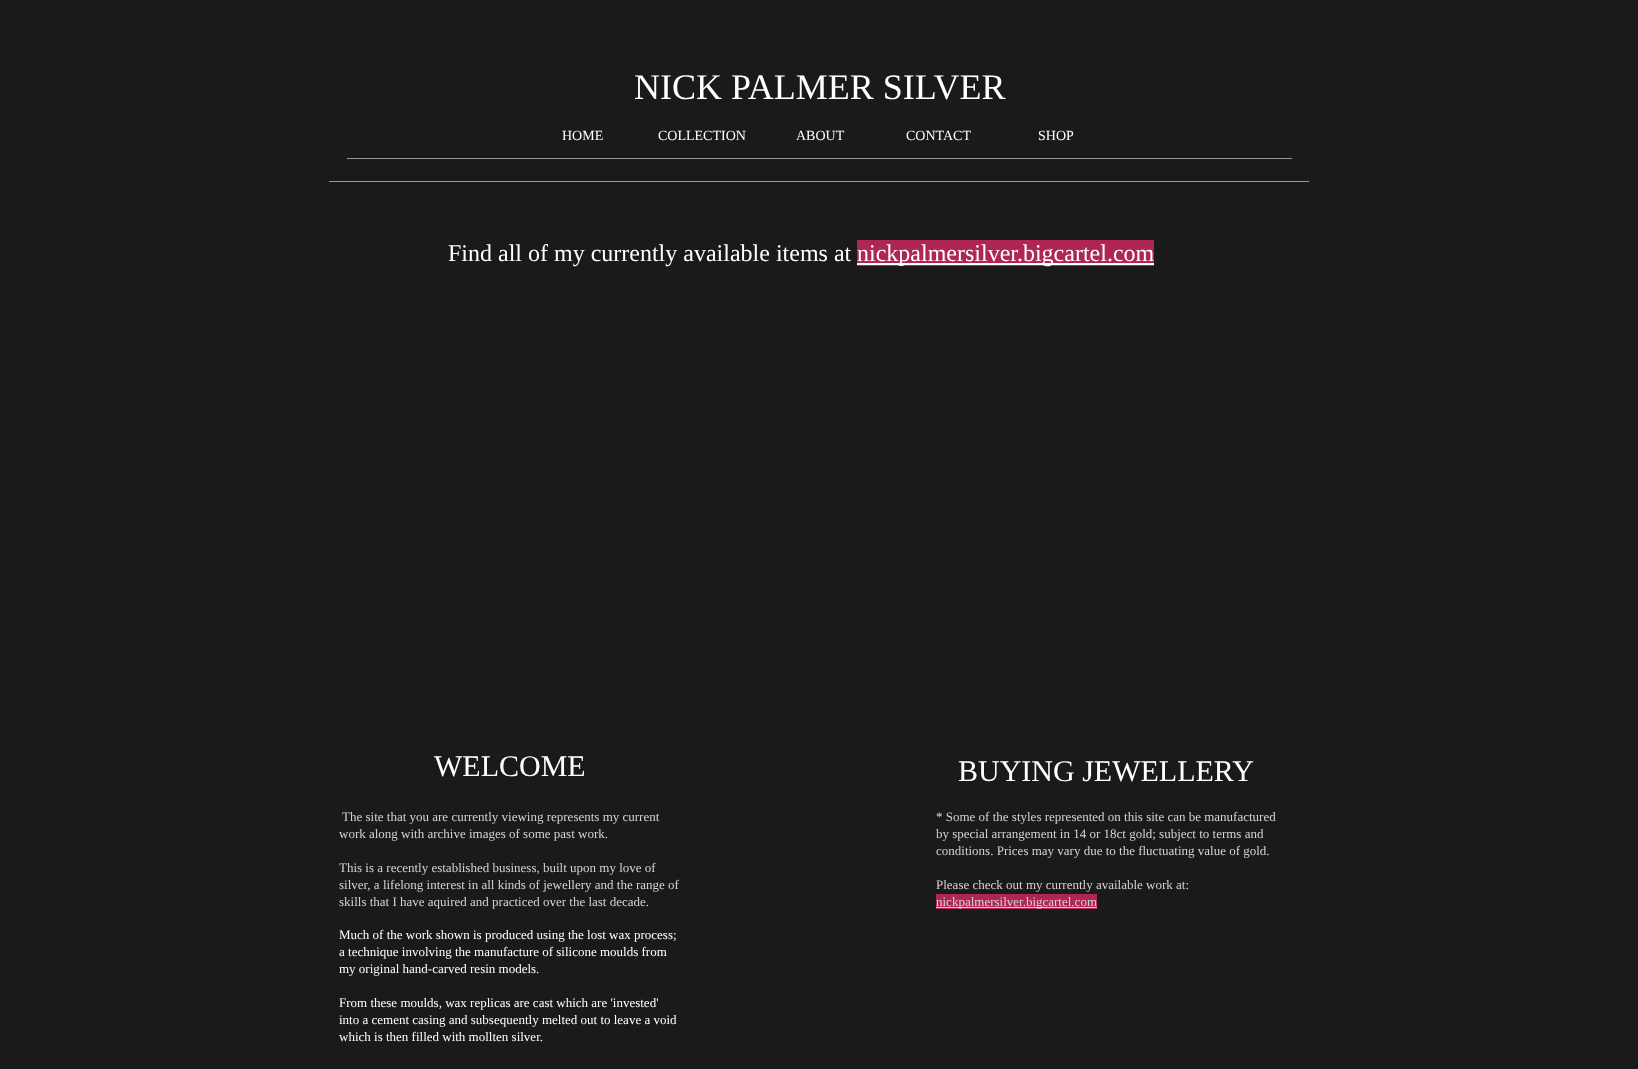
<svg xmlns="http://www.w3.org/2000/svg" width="1638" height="1069">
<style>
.a{font:36px Liberation Serif;fill:#fff}
.b{font:14px Liberation Serif;fill:#fff}
.c{font:24px Liberation Serif;fill:#fff}
.d{font:30px Liberation Serif;fill:#fff}
.e{font:13px Liberation Serif;fill:#d4d3d3}
.f{font:13px Liberation Serif;fill:#fff}
</style>
<rect width="100%" height="100%" fill="#1a1a1a"/>
<path fill="#999797" d="M347 158h945v1H347z"/>
<path fill="#999797" d="M329 181h980v1H329z"/>
<path fill="#af2652" d="M857 240h297v26H857z"/>
<path fill="#fff" d="M857 263h297v2H857z"/>
<path fill="#af2652" d="M936 894h161v15H936z"/>
<path fill="#d4d3d3" d="M936 907h161v1H936z"/>
<text class="a" x="634" y="99">NICK PALMER SILVER</text>
<text class="b" x="562" y="140">HOME</text>
<text class="b" x="658" y="140">COLLECTION</text>
<text class="b" x="796" y="140">ABOUT</text>
<text class="b" x="906" y="140">CONTACT</text>
<text class="b" x="1038" y="140">SHOP</text>
<text class="c" x="448" y="261">Find all of my currently available items at</text>
<text class="c" x="857" y="261">nickpalmersilver.bigcartel.com</text>
<text class="d" x="434" y="776">WELCOME</text>
<text class="d" x="958" y="781">BUYING JEWELLERY</text>
<text class="e" x="342" y="821">The site that you are currently viewing represents my current</text>
<text class="e" x="339" y="838">work along with archive images of some past work.</text>
<text class="e" x="339" y="872">This is a recently established business, built upon my love of</text>
<text class="e" x="339" y="889">silver, a lifelong interest in all kinds of jewellery and the range of</text>
<text class="e" x="339" y="906">skills that I have aquired and practiced over the last decade.</text>
<text class="f" x="339" y="939">Much of the work shown is produced using the lost wax process;</text>
<text class="f" x="339" y="956">a technique involving the manufacture of silicone moulds from</text>
<text class="f" x="339" y="973">my original hand-carved resin models.</text>
<text class="f" x="339" y="1007">From these moulds, wax replicas are cast which are 'invested'</text>
<text class="f" x="339" y="1024">into a cement casing and subsequently melted out to leave a void</text>
<text class="f" x="339" y="1041">which is then filled with mollten silver.</text>
<text class="e" x="936" y="821">* Some of the styles represented on this site can be manufactured</text>
<text class="e" x="936" y="838">by special arrangement in 14 or 18ct gold; subject to terms and</text>
<text class="e" x="936" y="855">conditions. Prices may vary due to the fluctuating value of gold.</text>
<text class="e" x="936" y="889">Please check out my currently available work at:</text>
<text class="e" x="936" y="906">nickpalmersilver.bigcartel.com</text>
</svg>
